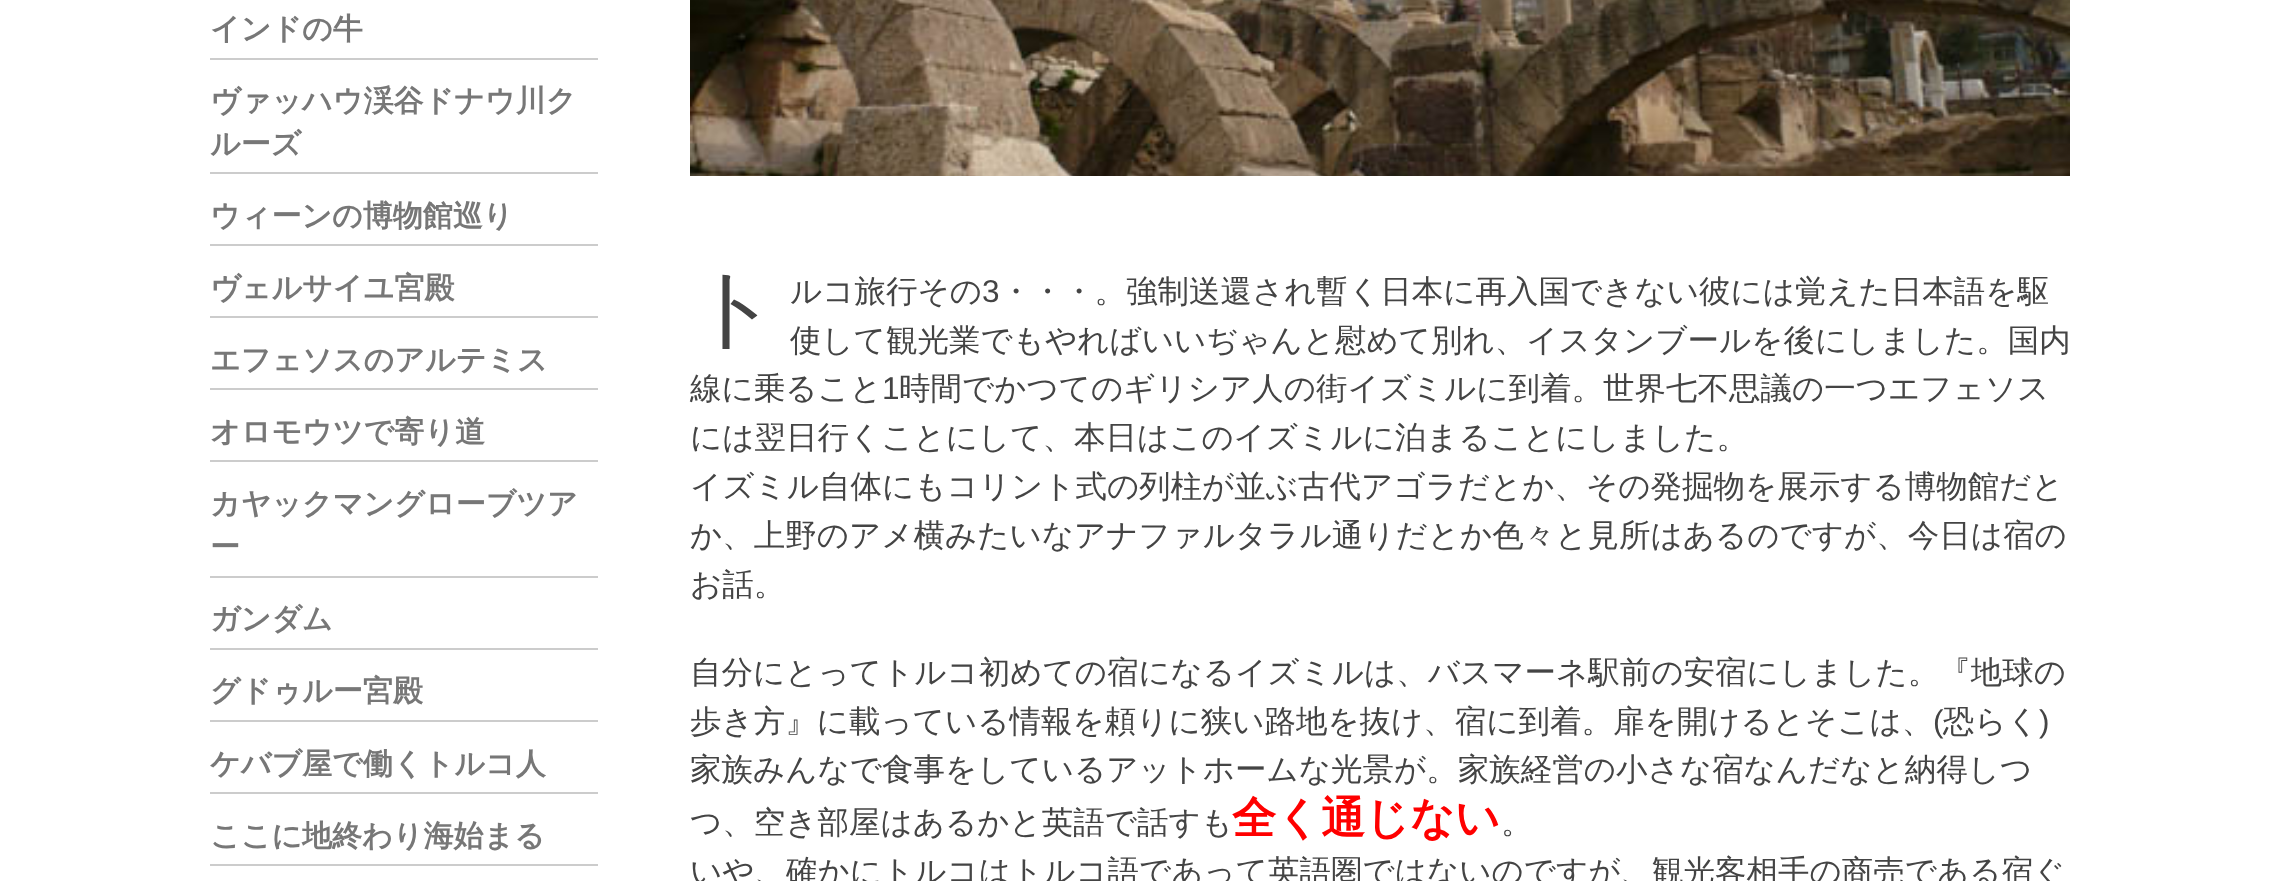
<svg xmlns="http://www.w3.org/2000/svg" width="2279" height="881">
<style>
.a{font:bold 30px WenQuanYi Zen Hei;fill:#777}
.b{font:500 88px WenQuanYi Zen Hei;fill:#444}
.c{font:500 31.5px WenQuanYi Zen Hei;fill:#444}
.d{font:31.5px Liberation Sans;fill:#444}
.e{font:bold 44px WenQuanYi Zen Hei;fill:#f00}
</style>
<rect width="100%" height="100%" fill="#fff"/>
<path fill="#ccc" d="M210 58h388v2H210z"/>
<path fill="#ccc" d="M210 172h388v2H210z"/>
<path fill="#ccc" d="M210 244h388v2H210z"/>
<path fill="#ccc" d="M210 316h388v2H210z"/>
<path fill="#ccc" d="M210 388h388v2H210z"/>
<path fill="#ccc" d="M210 460h388v2H210z"/>
<path fill="#ccc" d="M210 576h388v2H210z"/>
<path fill="#ccc" d="M210 648h388v2H210z"/>
<path fill="#ccc" d="M210 720h388v2H210z"/>
<path fill="#ccc" d="M210 792h388v2H210z"/>
<path fill="#ccc" d="M210 864h388v2H210z"/>
<image href="1.png" x="690" y="0" width="1380" height="176"/>
<text class="a" x="210" y="39">インドの牛</text>
<text class="a" x="210" y="111">ヴァッハウ渓谷ドナウ川ク</text>
<text class="a" x="210" y="154">ルーズ</text>
<text class="a" x="210" y="226">ウィーンの博物館巡り</text>
<text class="a" x="210" y="298">ヴェルサイユ宮殿</text>
<text class="a" x="210" y="370">エフェソスのアルテミス</text>
<text class="a" x="210" y="442">オロモウツで寄り道</text>
<text class="a" x="210" y="514">カヤックマングローブツア</text>
<text class="a" x="210" y="557">ー</text>
<text class="a" x="210" y="629">ガンダム</text>
<text class="a" x="210" y="701">グドゥルー宮殿</text>
<text class="a" x="210" y="774">ケバブ屋で働くトルコ人</text>
<text class="a" x="210" y="846">ここに地終わり海始まる</text>
<text class="b" x="690" y="338">ト</text>
<text class="c" x="790" y="302">ルコ旅行その</text>
<text class="d" x="982" y="302">3</text>
<text class="c" x="1000" y="302">・・・。強制送還され暫く日本に再入国できない彼には覚えた日本語を駆</text>
<text class="c" x="790" y="351">使して観光業でもやればいいぢゃんと慰めて別れ、イスタンブールを後にしました。国内</text>
<text class="c" x="690" y="399">線に乗ること</text>
<text class="d" x="882" y="399">1</text>
<text class="c" x="899" y="399">時間でかつてのギリシア人の街イズミルに到着。世界七不思議の一つエフェソス</text>
<text class="c" x="690" y="448">には翌日行くことにして、本日はこのイズミルに泊まることにしました。</text>
<text class="c" x="690" y="497">イズミル自体にもコリント式の列柱が並ぶ古代アゴラだとか、その発掘物を展示する博物館だと</text>
<text class="c" x="690" y="546">か、上野のアメ横みたいなアナファルタラル通りだとか色々と見所はあるのですが、今日は宿の</text>
<text class="c" x="690" y="595">お話。</text>
<text class="c" x="690" y="683">自分にとってトルコ初めての宿になるイズミルは、バスマーネ駅前の安宿にしました。『地球の</text>
<text class="c" x="690" y="732">歩き方』に載っている情報を頼りに狭い路地を抜け、宿に到着。扉を開けるとそこは、</text>
<text class="d" x="1933" y="732">(</text>
<text class="c" x="1943" y="732">恐らく</text>
<text class="d" x="2039" y="732">)</text>
<text class="c" x="690" y="780">家族みんなで食事をしているアットホームな光景が。家族経営の小さな宿なんだなと納得しつ</text>
<text class="c" x="690" y="833">つ、空き部屋はあるかと英語で話すも</text>
<text class="e" x="1232" y="833">全く通じない</text>
<text class="c" x="1501" y="833">。</text>
<text class="c" x="690" y="882">いや、確かにトルコはトルコ語であって英語圏ではないのですが、観光客相手の商売である宿ぐ</text>
</svg>
